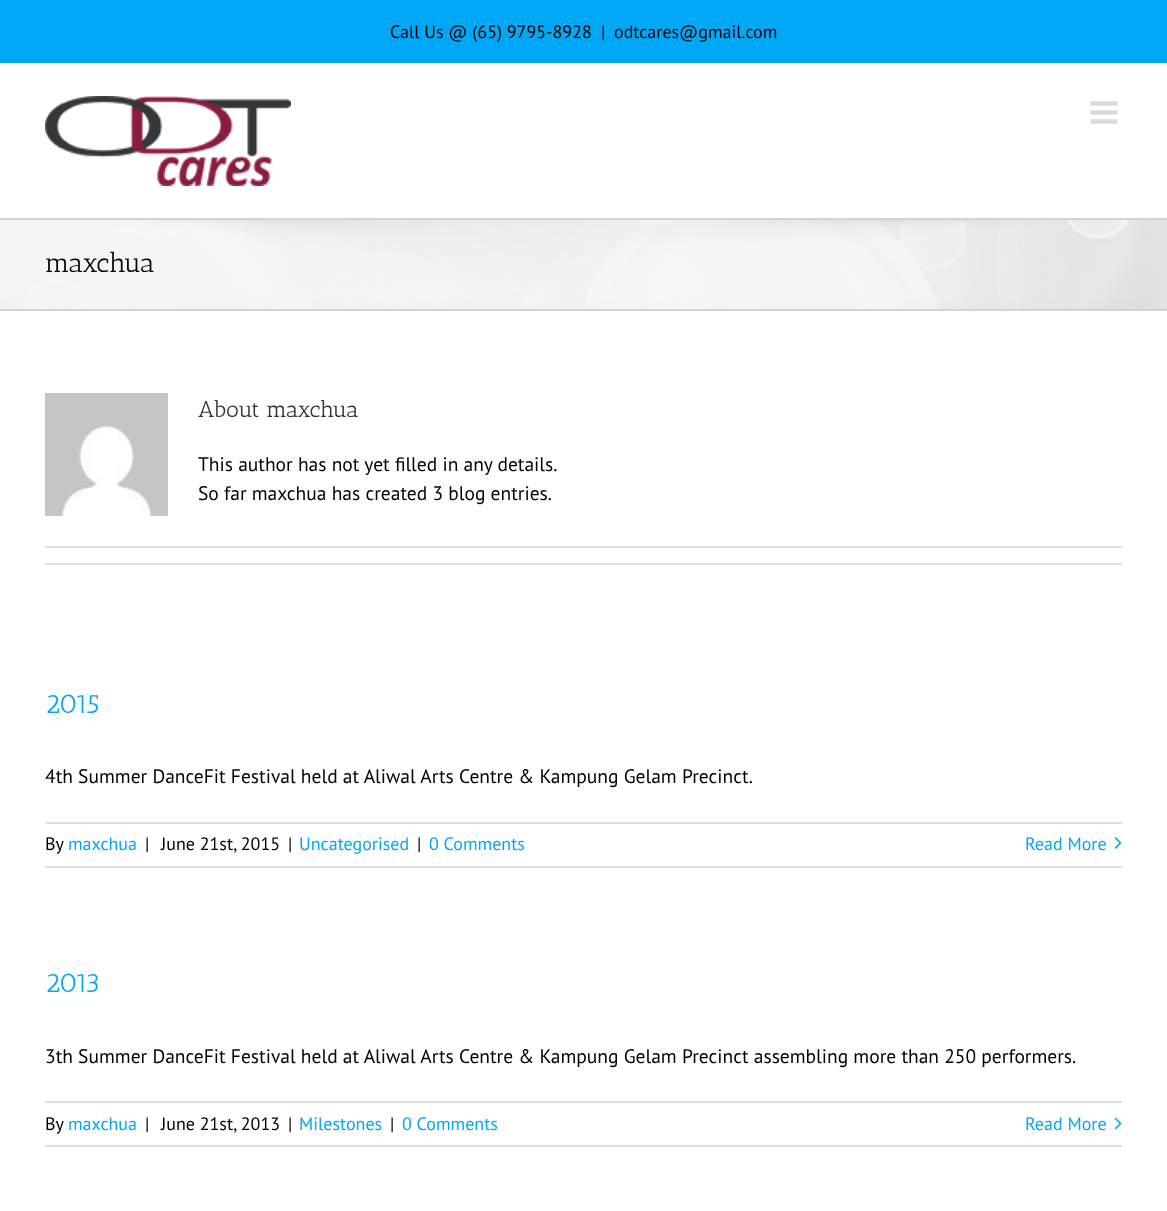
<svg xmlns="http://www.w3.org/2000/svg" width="1167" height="1211">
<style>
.a{font:18px PT Sans;fill:#000}
.b{font:27px Antic Slab;fill:#000}
.c{font:22.75px Antic Slab;fill:#333}
.d{font:19.5px PT Sans;fill:#000}
.e{font:27px Antic Slab;fill:#00a7f4}
.f{font:18px PT Sans;fill:#00a7f4}
</style>
<rect width="100%" height="100%" fill="#fff"/>
<path fill="#00a7f4" d="M0 0h1167v63H0z"/>
<image href="1.png" x="45" y="96" width="246" height="90"/>
<image href="2.png" x="1090" y="101" width="28" height="23"/>
<path fill="#f6f6f6" d="M0 220h1167v89H0z"/>
<image href="3.png" x="0" y="220" width="1167" height="89"/>
<path fill="#d2d3d4" d="M0 218h1167v2H0z"/>
<path fill="#d2d3d4" d="M0 309h1167v2H0z"/>
<image href="4.png" x="45" y="393" width="123" height="123"/>
<path fill="#e0dede" d="M45 546h1077v2H45z"/>
<path fill="#e0dede" d="M45 563h1077v2H45z"/>
<path fill="#e0dede" d="M45 822h1077v2H45z"/>
<path fill="#e0dede" d="M45 866h1077v2H45z"/>
<image href="5.png" x="1114" y="837" width="8" height="12"/>
<path fill="#e0dede" d="M45 1101h1077v2H45z"/>
<path fill="#e0dede" d="M45 1145h1077v2H45z"/>
<image href="6.png" x="1114" y="1117" width="8" height="13"/>
<text class="a" x="390" y="38">Call Us @ (65) 9795-8928</text>
<text class="a" x="601" y="38">|</text>
<text class="a" x="614" y="38">odtcares@gmail.com</text>
<text class="b" x="45" y="272">maxchua</text>
<text class="c" x="198" y="417">About maxchua</text>
<text class="d" x="198" y="471">This author has not yet filled in any details.</text>
<text class="d" x="198" y="500">So far maxchua has created 3 blog entries.</text>
<text class="e" x="45" y="713">2015</text>
<text class="d" x="45" y="783">4th Summer DanceFit Festival held at Aliwal Arts Centre &amp; Kampung Gelam Precinct.</text>
<text class="a" x="45" y="850">By</text>
<text class="f" x="68" y="850">maxchua</text>
<text class="a" x="145" y="850">|</text>
<text class="a" x="161" y="850">June 21st, 2015</text>
<text class="a" x="288" y="850">|</text>
<text class="f" x="299" y="850">Uncategorised</text>
<text class="a" x="417" y="850">|</text>
<text class="f" x="429" y="850">0 Comments</text>
<text class="f" x="1025" y="850">Read More</text>
<text class="e" x="45" y="992">2013</text>
<text class="d" x="45" y="1063">3th Summer DanceFit Festival held at Aliwal Arts Centre &amp; Kampung Gelam Precinct assembling more than 250 performers.</text>
<text class="a" x="45" y="1130">By</text>
<text class="f" x="68" y="1130">maxchua</text>
<text class="a" x="145" y="1130">|</text>
<text class="a" x="161" y="1130">June 21st, 2013</text>
<text class="a" x="288" y="1130">|</text>
<text class="f" x="299" y="1130">Milestones</text>
<text class="a" x="390" y="1130">|</text>
<text class="f" x="402" y="1130">0 Comments</text>
<text class="f" x="1025" y="1130">Read More</text>
</svg>
